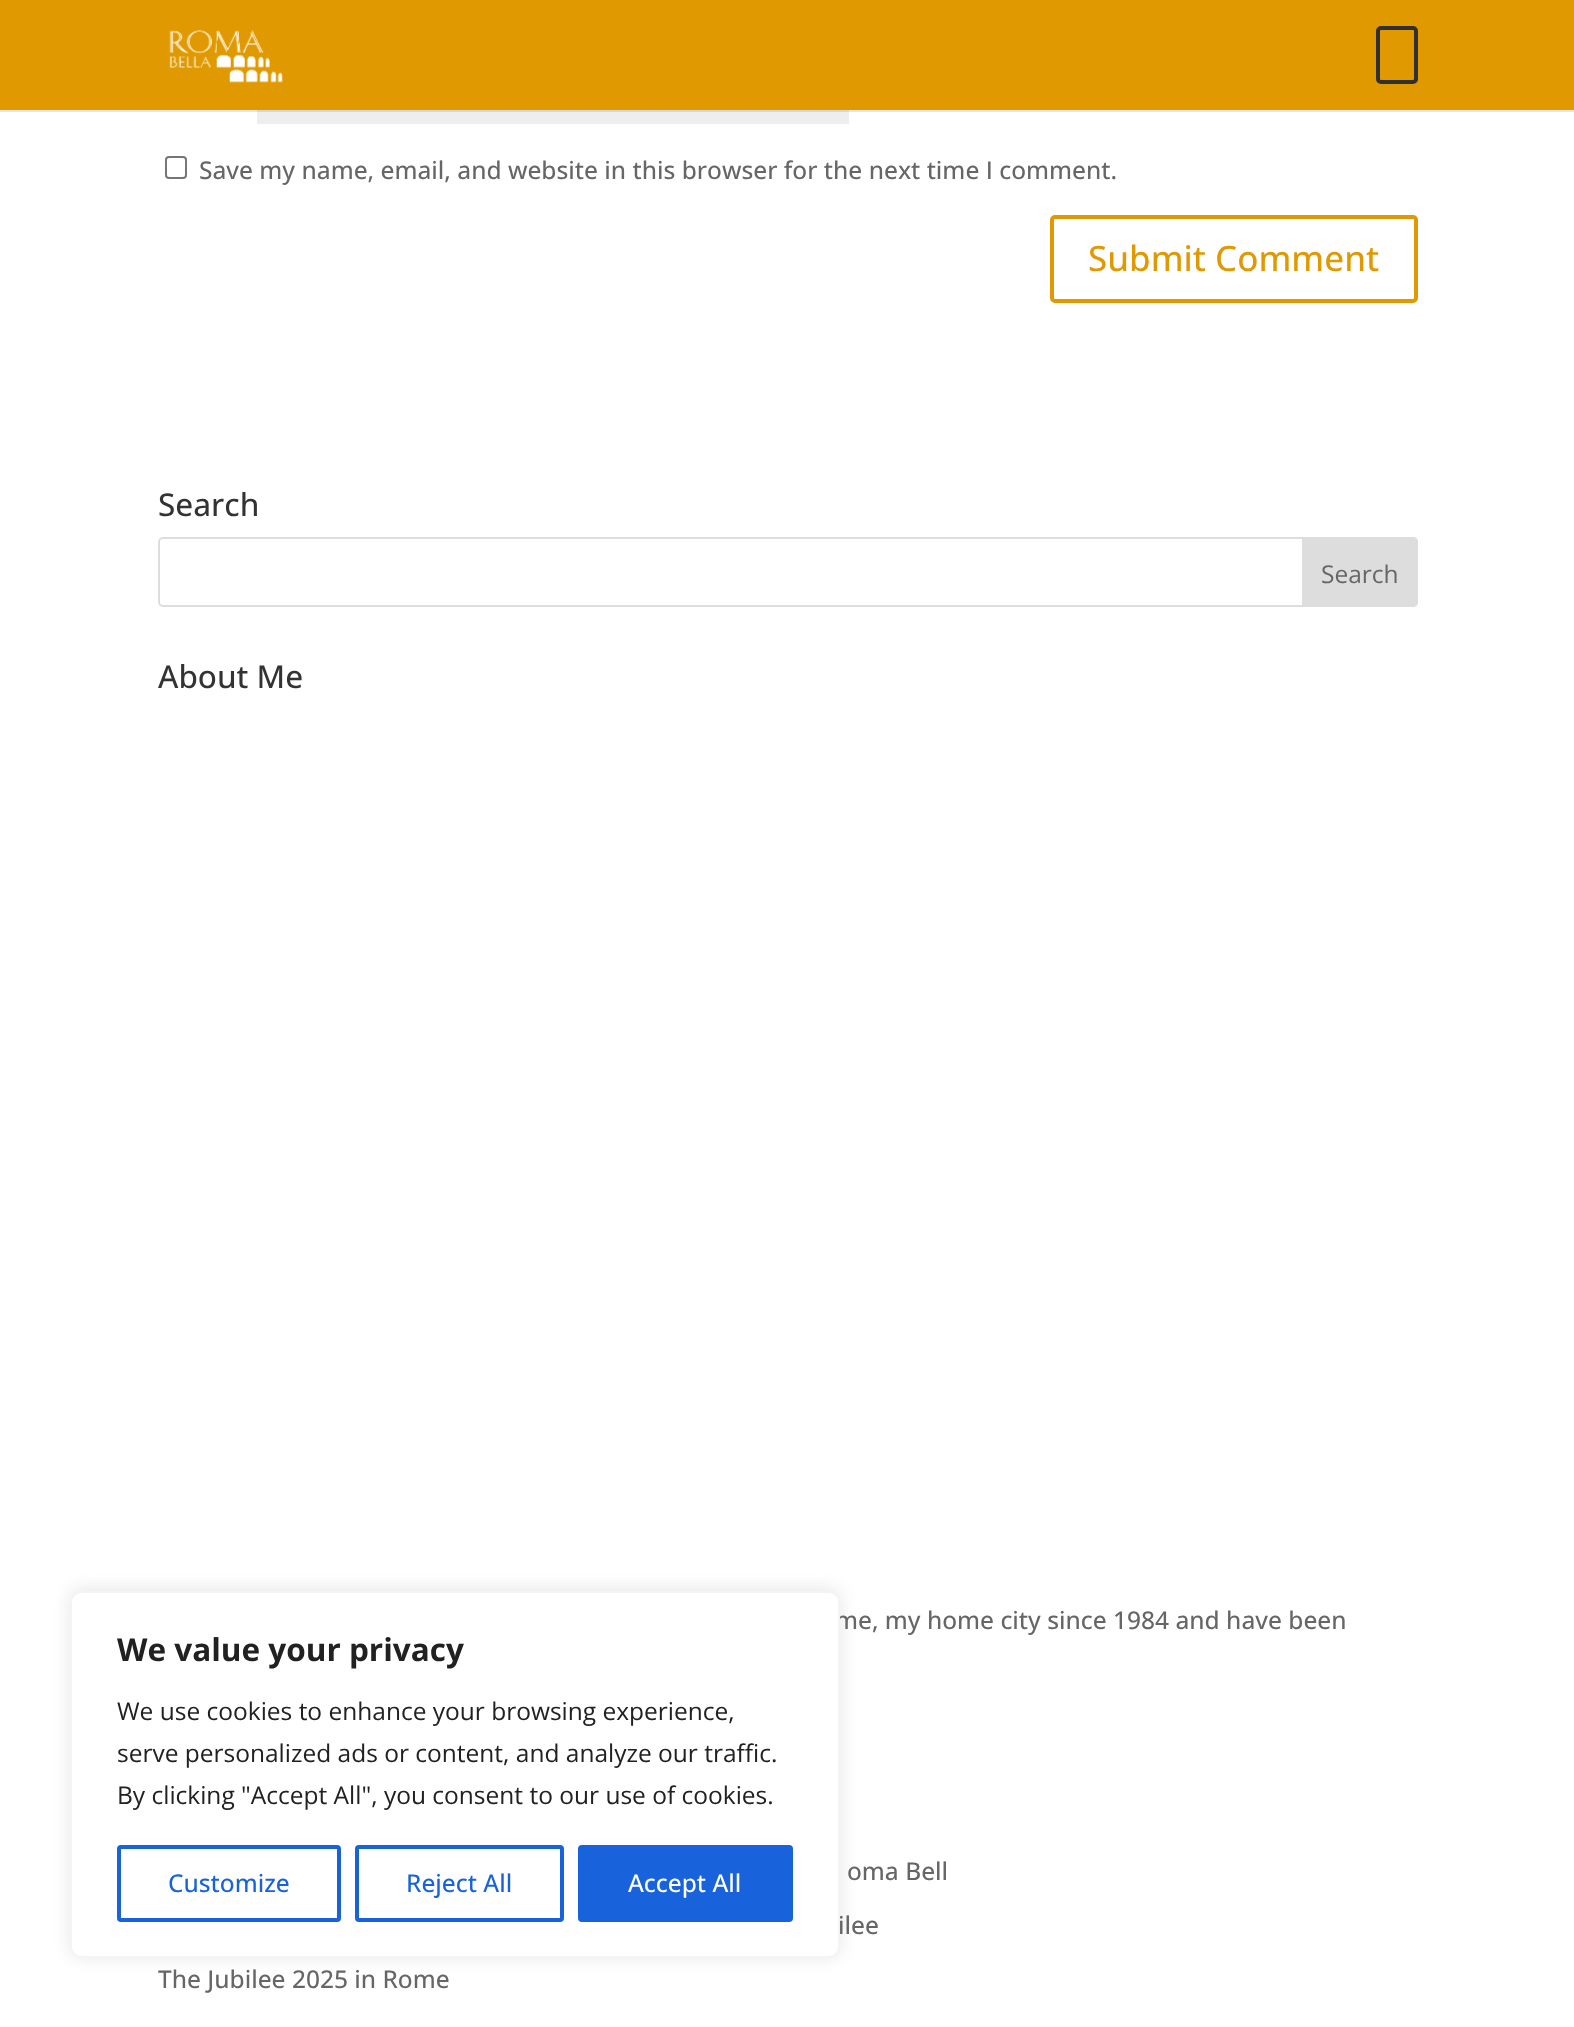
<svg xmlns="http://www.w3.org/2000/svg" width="1574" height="2027">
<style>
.a{font:500 24.5px Open Sans;fill:#666}
.b{font:500 35px Open Sans;fill:#e09900}
.c{font:500 31.5px Open Sans;fill:#333}
.d{font:24.5px Open Sans;fill:#666}
.e{font:bold 31.5px Open Sans;fill:#212121}
.f{font:24.5px Open Sans;fill:#212121}
.g{font:500 24.5px Open Sans;fill:#1863dc}
.h{font:500 24.5px Open Sans;fill:#fff}
</style>
<rect width="100%" height="100%" fill="#fff"/>
<path fill="#e6e6e6" d="M0 110h1574v2H0z"/>
<path fill="#e09900" d="M0 0h1574v110H0z"/>
<image href="1.png" x="169" y="30" width="114" height="53"/>
<rect fill="none" stroke="#303030" stroke-width="4" x="1378" y="28" width="38" height="54" rx="3"/>
<path fill="#eee" d="M257 112h592v12H257z"/>
<path fill="#d6d6d6" d="M257 110h592v2H257z"/>
<rect fill="none" stroke="#767676" stroke-width="2" x="166" y="157" width="20" height="21" rx="3"/>
<rect fill="none" stroke="#e09900" stroke-width="4" x="1052" y="217" width="364" height="84" rx="3"/>
<rect fill="none" stroke="#ddd" stroke-width="2" x="159" y="538" width="1258" height="68" rx="4"/>
<path fill="#ddd" stroke="#ddd" stroke-width="2" d="M1303 538h110c2 0 4 2 4 4v60c0 2-2 4-4 4h-110z"/>
<rect fill="#acabab4d" filter="blur(9px)" x="70" y="1589" width="770" height="368" rx="11"/>
<text class="a" x="199" y="179">Save my name, email, and website in this browser for the next time I comment.</text>
<text class="b" x="1088" y="271">Submit Comment</text>
<text class="c" x="158" y="516">Search</text>
<text class="d" x="1321" y="583">Search</text>
<text class="c" x="158" y="688">About Me</text>
<text class="a" x="835" y="1629">me, my home city since 1984 and have been</text>
<text class="a" x="847" y="1880">oma Bell</text>
<text class="a" x="838" y="1934">ilee</text>
<text class="a" x="158" y="1988">The Jubilee 2025 in Rome</text>
<rect fill="#fff" stroke="#f4f4f4" stroke-width="2" x="71" y="1592" width="768" height="365" rx="10"/>
<text class="e" x="117" y="1661">We value your privacy</text>
<text class="f" x="117" y="1720">We use cookies to enhance your browsing experience,</text>
<text class="f" x="117" y="1762">serve personalized ads or content, and analyze our traffic.</text>
<text class="f" x="117" y="1804">By clicking "Accept All", you consent to our use of cookies.</text>
<rect fill="none" stroke="#1863dc" stroke-width="4" x="119" y="1847" width="220" height="73" rx="2"/>
<text class="g" x="168" y="1892">Customize</text>
<rect fill="none" stroke="#1863dc" stroke-width="4" x="357" y="1847" width="205" height="73" rx="2"/>
<text class="g" x="406" y="1892">Reject All</text>
<rect fill="#1863dc" stroke="#1863dc" stroke-width="4" x="580" y="1847" width="211" height="73" rx="2"/>
<text class="h" x="628" y="1892">Accept All</text>
</svg>
